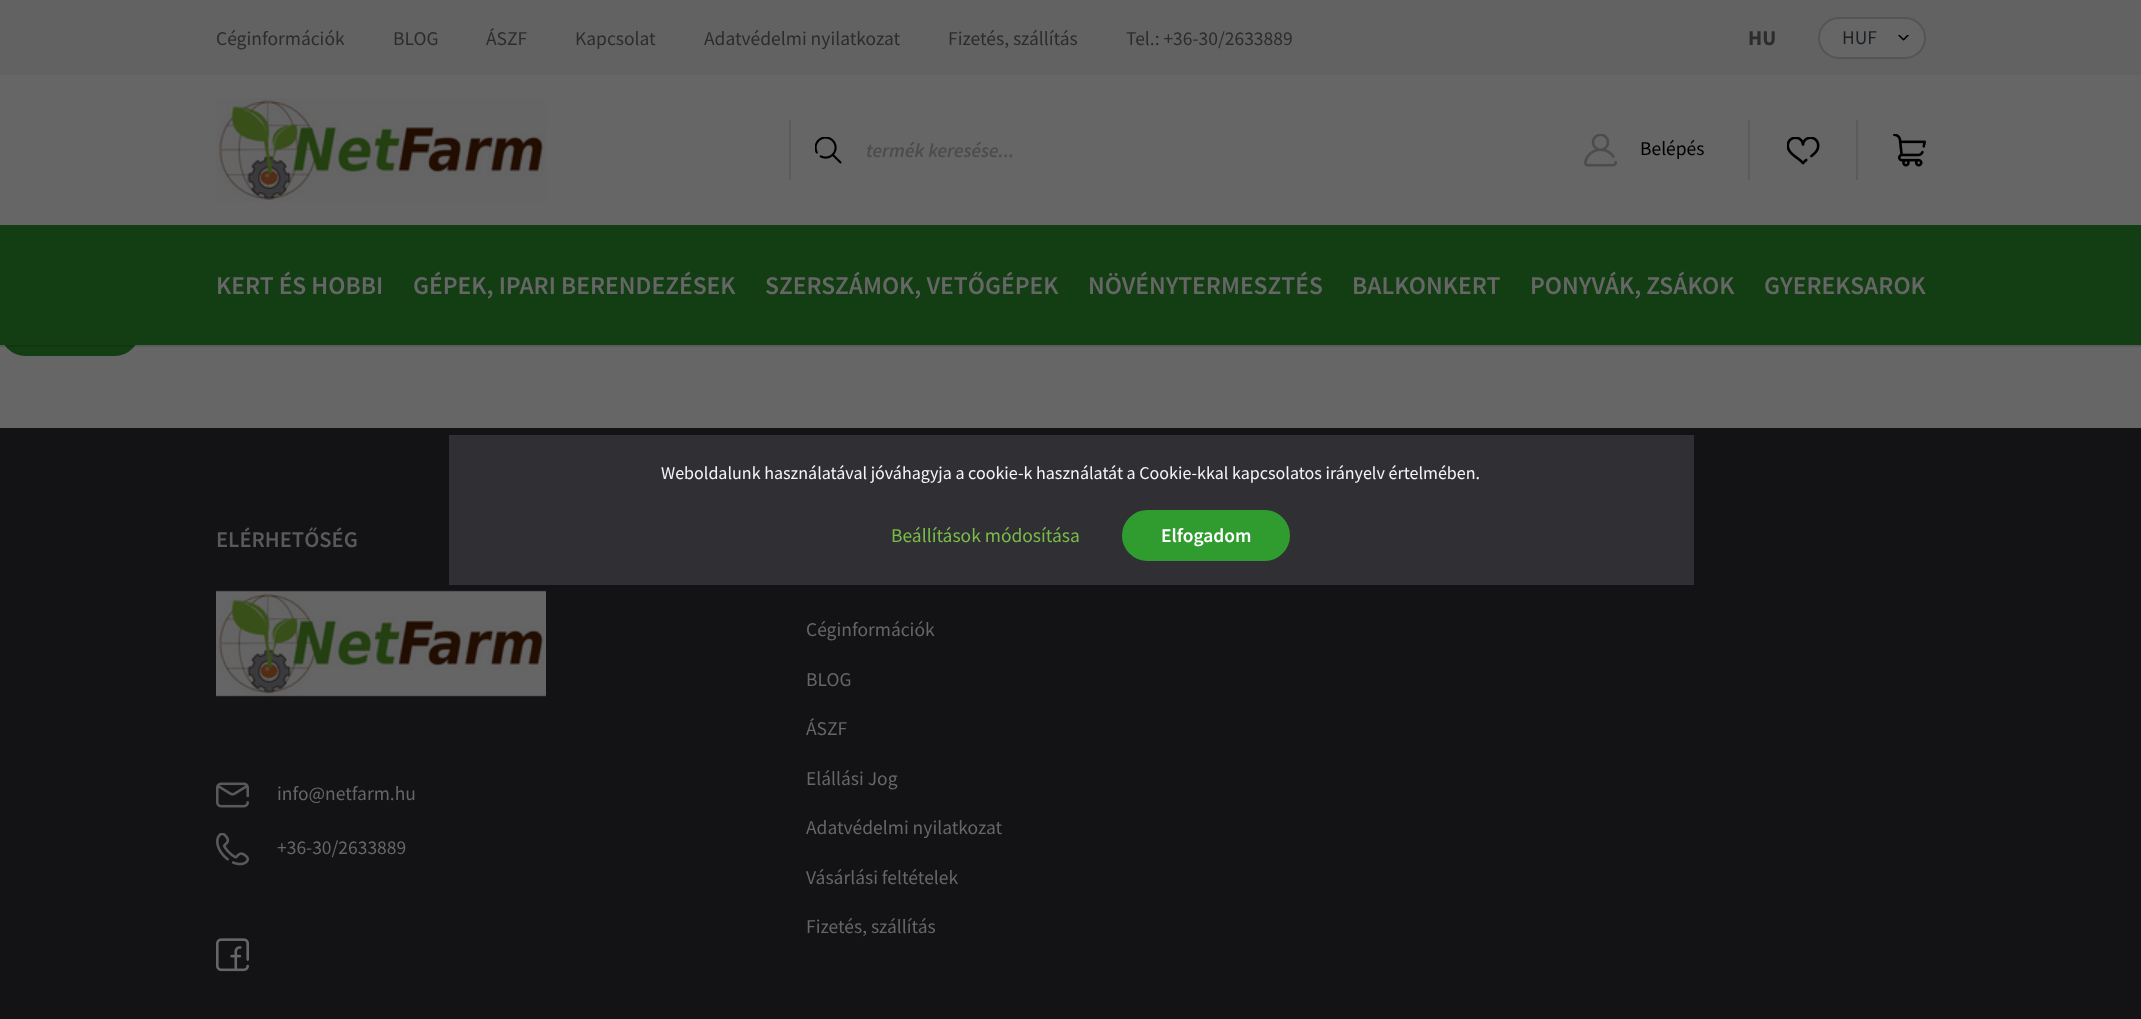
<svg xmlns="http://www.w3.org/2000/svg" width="2141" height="1019">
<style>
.a{font:19.5px Source Sans Pro;fill:#2c2c2c}
.b{font:bold 21px Source Sans Pro;fill:#2c2c2c}
.c{font:19.5px Source Sans Pro;fill:#1d2023}
.d{font:italic 600 19.5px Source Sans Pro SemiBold;fill:#4c4c4c}
.e{font:19.5px Source Sans Pro;fill:#000}
.f{font:600 25.5px Source Sans Pro SemiBold;fill:#666}
.g{font:600 22.5px Source Sans Pro SemiBold;fill:#595959}
.h{font:19.5px Source Sans Pro;fill:#666}
.i{font:18px Source Sans Pro;fill:#f5f5f5}
.j{font:19.5px Source Sans Pro;fill:#78bd49}
.k{font:600 19.5px Source Sans Pro SemiBold;fill:#fff}
</style>
<rect width="100%" height="100%" fill="#666"/>
<rect fill="#133e13" stroke="#133e13" stroke-width="2" x="1" y="306" width="138" height="49" rx="24.5"/>
<path fill="#0000001a" d="M0 345h2141v2H0z"/>
<path fill="#626262" d="M0 0h2141v75H0z"/>
<rect fill="#666" x="1818" y="17" width="108" height="42" rx="21"/>
<image href="1.png" x="1898" y="35" width="11" height="6"/>
<rect fill="none" stroke="#545454" stroke-width="2" x="1819" y="18" width="106" height="40" rx="20"/>
<image href="2.png" x="216" y="98" width="330" height="104"/>
<image href="3.png" x="815" y="137" width="27" height="27"/>
<path fill="#5b5b5b" d="M789 120h2v60H789z"/>
<image href="4.png" x="1584" y="134" width="33" height="33"/>
<path fill="#5b5b5b" d="M1748 120h2v60H1748z"/>
<image href="5.png" x="1787" y="137" width="33" height="28"/>
<path fill="#5b5b5b" d="M1856 120h2v60H1856z"/>
<image href="6.png" x="1893" y="134" width="33" height="33"/>
<path fill="#133e13" d="M0 225h2141v120H0z"/>
<path fill="#131315" d="M0 428h2141v591H0z"/>
<image href="7.png" x="216" y="590" width="330" height="107"/>
<image href="8.png" x="216" y="782" width="33" height="26"/>
<image href="9.png" x="216" y="833" width="33" height="33"/>
<image href="10.png" x="216" y="938" width="33" height="34"/>
<path fill="#302f34" d="M449 435h1245v150H449z"/>
<rect fill="#309c30" stroke="#309c30" stroke-width="2" x="1123" y="511" width="166" height="49" rx="24.5"/>
<text class="a" x="216" y="45">Céginformációk</text>
<text class="a" x="393" y="45">BLOG</text>
<text class="a" x="486" y="45">ÁSZF</text>
<text class="a" x="575" y="45">Kapcsolat</text>
<text class="a" x="704" y="45">Adatvédelmi nyilatkozat</text>
<text class="a" x="948" y="45">Fizetés, szállítás</text>
<text class="a" x="1126" y="45">Tel.: +36-30/2633889</text>
<text class="b" x="1748" y="45">HU</text>
<text class="c" x="1842" y="44">HUF</text>
<text class="d" x="866" y="157">termék keresése...</text>
<text class="e" x="1640" y="155">Belépés</text>
<text class="f" x="216" y="294">KERT ÉS HOBBI</text>
<text class="f" x="413" y="294">GÉPEK, IPARI BERENDEZÉSEK</text>
<text class="f" x="765" y="294">SZERSZÁMOK, VETŐGÉPEK</text>
<text class="f" x="1088" y="294">NÖVÉNYTERMESZTÉS</text>
<text class="f" x="1352" y="294">BALKONKERT</text>
<text class="f" x="1530" y="294">PONYVÁK, ZSÁKOK</text>
<text class="f" x="1764" y="294">GYEREKSAROK</text>
<text class="g" x="216" y="547">ELÉRHETŐSÉG</text>
<text class="h" x="277" y="800">info@netfarm.hu</text>
<text class="h" x="277" y="854">+36-30/2633889</text>
<text class="h" x="806" y="636">Céginformációk</text>
<text class="h" x="806" y="686">BLOG</text>
<text class="h" x="806" y="735">ÁSZF</text>
<text class="h" x="806" y="785">Elállási Jog</text>
<text class="h" x="806" y="834">Adatvédelmi nyilatkozat</text>
<text class="h" x="806" y="884">Vásárlási feltételek</text>
<text class="h" x="806" y="933">Fizetés, szállítás</text>
<text class="i" x="661" y="479">Weboldalunk használatával jóváhagyja a cookie-k használatát a Cookie-kkal kapcsolatos irányelv értelmében.</text>
<text class="j" x="891" y="542">Beállítások módosítása</text>
<text class="k" x="1161" y="542">Elfogadom</text>
</svg>
